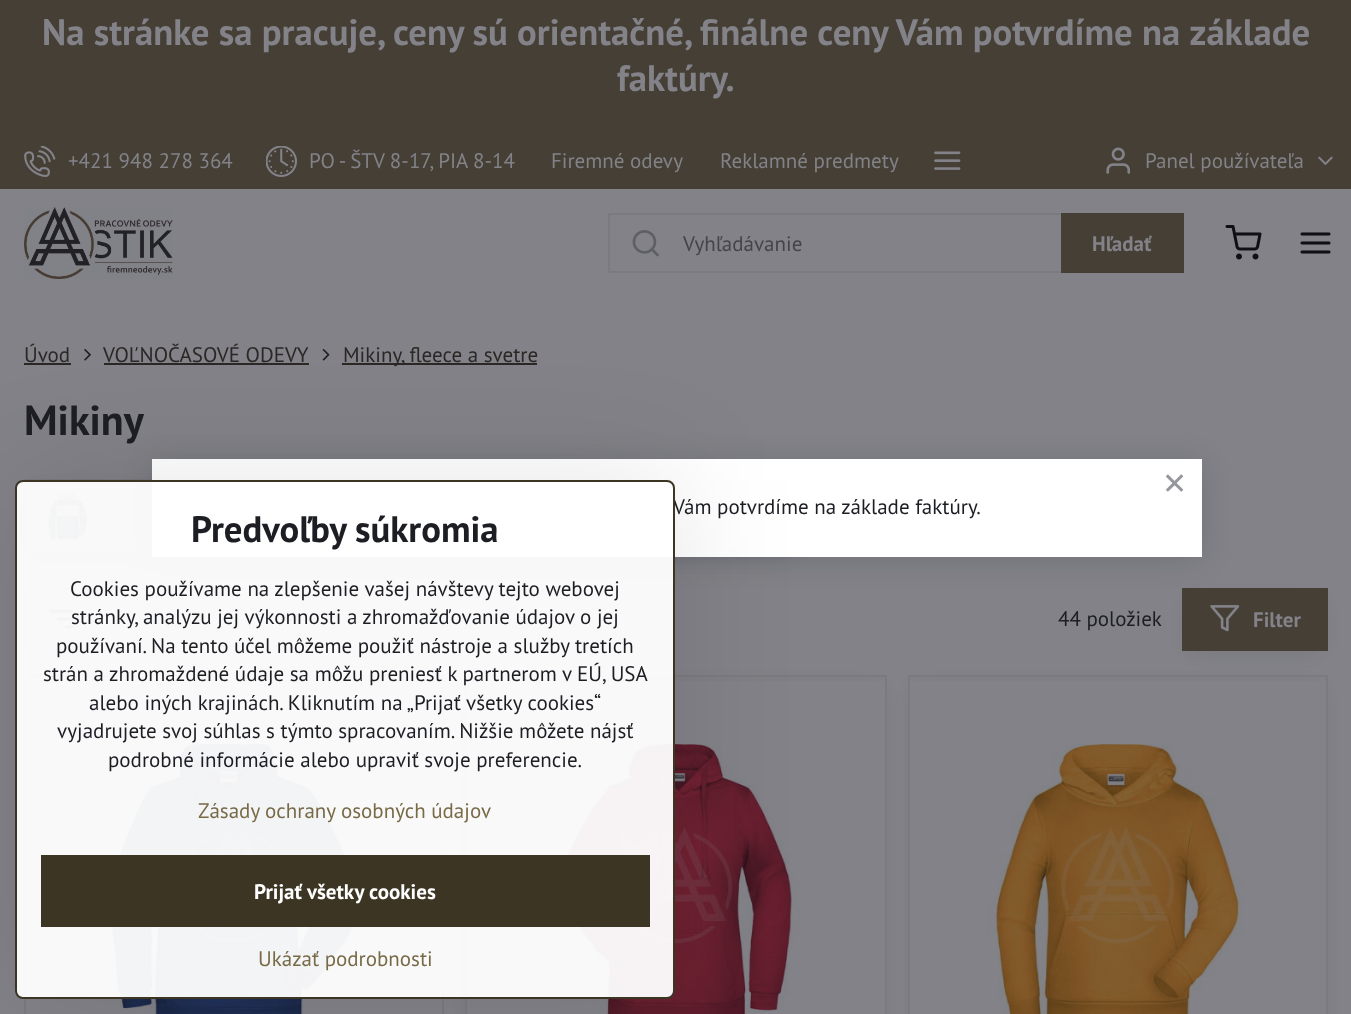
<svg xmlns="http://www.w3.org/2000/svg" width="1351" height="1014">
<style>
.a{font:bold 36.75px PT Sans;fill:#828288}
.b{font:21px PT Sans;fill:#828288}
.c{font:21px PT Sans;fill:#44444a}
.d{font:bold 21px PT Sans;fill:#828288}
.e{font:21px PT Sans;fill:#2a2725}
.f{font:bold 42px PT Sans;fill:#1d1e24}
.g{font:21px PT Sans;fill:#1d1e24}
.h{font:30px DejaVu Sans;fill:#95979c}
.i{font:bold 36.75px PT Sans;fill:#1d1e24}
.j{font:21px PT Sans;fill:#786a47}
.k{font:bold 21px PT Sans;fill:#fff}
</style>
<defs>
<clipPath id="clip1"><path d="M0 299h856v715h-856zm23 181h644c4.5 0 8 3.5 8 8v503c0 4.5-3.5 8-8 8h-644c-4.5 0-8-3.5-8-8v-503c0-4.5 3.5-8 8-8z" clip-rule="evenodd"/></clipPath>
</defs>
<rect width="100%" height="100%" fill="#828288"/>
<path fill="#453f35" d="M0 0h1351v189H0z"/>
<image href="1.png" x="24" y="146" width="32" height="31"/>
<image href="2.png" x="266" y="146" width="31" height="31"/>
<image href="3.png" x="934" y="151" width="27" height="19"/>
<image href="4.png" x="1106" y="147" width="25" height="27"/>
<image href="5.png" x="1318" y="156" width="15" height="9"/>
<image href="6.png" x="24" y="207" width="149" height="72"/>
<path fill="none" stroke="#7a7a80" stroke-width="2" d="M609 214h574v58H609z"/>
<image href="7.png" x="632" y="230" width="27" height="27"/>
<path fill="#453f35" d="M1061 213h123v60H1061z"/>
<image href="8.png" x="1225" y="225" width="37" height="35"/>
<image href="9.png" x="1300" y="232" width="31" height="22"/>
<path fill="#2a2725" d="M24 363h47v2H24z"/>
<image href="10.png" x="84" y="349" width="7" height="12"/>
<path fill="#2a2725" d="M104 363h205v2H104z"/>
<image href="11.png" x="322" y="349" width="8" height="12"/>
<path fill="#2a2725" d="M342 363h195v2H342z"/>
<path fill="#0f0f1e26" filter="blur(10.5px)" d="M35 495h223v56H35z"/>
<path fill="#828288" d="M26 484h126v69H26z"/>
<path fill="none" stroke="#7a7a80" stroke-width="2" d="M25 480h243v74H25z"/>
<image href="12.png" x="46" y="493" width="43" height="47"/>
<path fill="#0f0f1e26" filter="blur(10.5px)" d="M300 495h222v56H300z"/>
<path fill="#0f0f1e26" filter="blur(10.5px)" d="M564 495h224v56H564z"/>
<path fill="none" stroke="#7a7a80" stroke-width="2" d="M25 589h298v61H25z"/>
<image href="13.png" x="49" y="609" width="24" height="20"/>
<image href="14.png" x="281" y="614" width="16" height="9"/>
<path fill="#0f0f1e26" filter="blur(10.5px)" d="M1193 605h124v42H1193z"/>
<path fill="#453f35" d="M1182 588h146v63H1182z"/>
<image href="15.png" x="1210" y="605" width="30" height="27"/>
<path fill="none" stroke="#7a7a80" stroke-width="2" d="M25 676h418v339H25z"/>
<image href="16.png" x="101" y="744" width="260" height="270"/>
<path fill="#0f0f1e26" filter="blur(10.5px)" d="M476 692h400v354H476z"/>
<path fill="#828288" d="M467 681h418v333H467z"/>
<path fill="none" stroke="#7a7a80" stroke-width="2" d="M466 676h420v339H466z"/>
<image href="17.png" x="556" y="744" width="245" height="270"/>
<path fill="#0f0f1e26" filter="blur(10.5px)" d="M918 692h399v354H918z"/>
<path fill="#828288" d="M910 681h416v333H910z"/>
<path fill="none" stroke="#7a7a80" stroke-width="2" d="M909 676h418v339H909z"/>
<image href="18.png" x="986" y="744" width="258" height="270"/>
<path fill="#00001426" filter="blur(16px)" d="M155 465h1044v92H155z"/>
<path fill="#fff" d="M152 459h1050v98H152z"/>
<g clip-path="url(#clip1)">
<rect fill="#0000001a" filter="blur(60px)" x="15" y="480" width="660" height="519" rx="8"/>
</g>
<text class="a" x="42" y="45">Na stránke sa pracuje, ceny sú orientačné, finálne ceny Vám potvrdíme na základe</text>
<text class="a" x="617" y="91">faktúry.</text>
<text class="b" x="68" y="168">+421 948 278 364</text>
<text class="b" x="309" y="168">PO - ŠTV 8-17, PIA 8-14</text>
<text class="b" x="551" y="168">Firemné odevy</text>
<text class="b" x="720" y="168">Reklamné predmety</text>
<text class="b" x="1145" y="168">Panel používateľa</text>
<text class="c" x="683" y="251">Vyhľadávanie</text>
<text class="d" x="1092" y="251">Hľadať</text>
<text class="e" x="24" y="362">Úvod</text>
<text class="e" x="103" y="362">VOĽNOČASOVÉ ODEVY</text>
<text class="e" x="343" y="362">Mikiny, fleece a svetre</text>
<text class="f" x="24" y="435">Mikiny</text>
<text class="g" x="1058" y="626">44 položiek</text>
<text class="d" x="1253" y="627">Filter</text>
<text class="h" x="1162" y="494">✕</text>
<text class="g" x="673" y="514">Vám potvrdíme na základe faktúry.</text>
<rect fill="#fffffff2" stroke="#3c3523" stroke-width="2" x="16" y="481" width="658" height="517" rx="7"/>
<text class="i" x="191" y="542">Predvoľby súkromia</text>
<text class="g" x="70" y="596">Cookies používame na zlepšenie vašej návštevy tejto webovej</text>
<text class="g" x="71" y="624">stránky, analýzu jej výkonnosti a zhromažďovanie údajov o jej</text>
<text class="g" x="56" y="653">používaní. Na tento účel môžeme použiť nástroje a služby tretích</text>
<text class="g" x="43" y="681">strán a zhromaždené údaje sa môžu preniesť k partnerom v EÚ, USA</text>
<text class="g" x="89" y="710">alebo iných krajinách. Kliknutím na „Prijať všetky cookies“</text>
<text class="g" x="57" y="738">vyjadrujete svoj súhlas s týmto spracovaním. Nižšie môžete nájsť</text>
<text class="g" x="108" y="767">podrobné informácie alebo upraviť svoje preferencie.</text>
<text class="j" x="198" y="818">Zásady ochrany osobných údajov</text>
<path fill="#3c3523" d="M41 855h609v72H41z"/>
<text class="k" x="254" y="899">Prijať všetky cookies</text>
<text class="j" x="258" y="966">Ukázať podrobnosti</text>
</svg>
